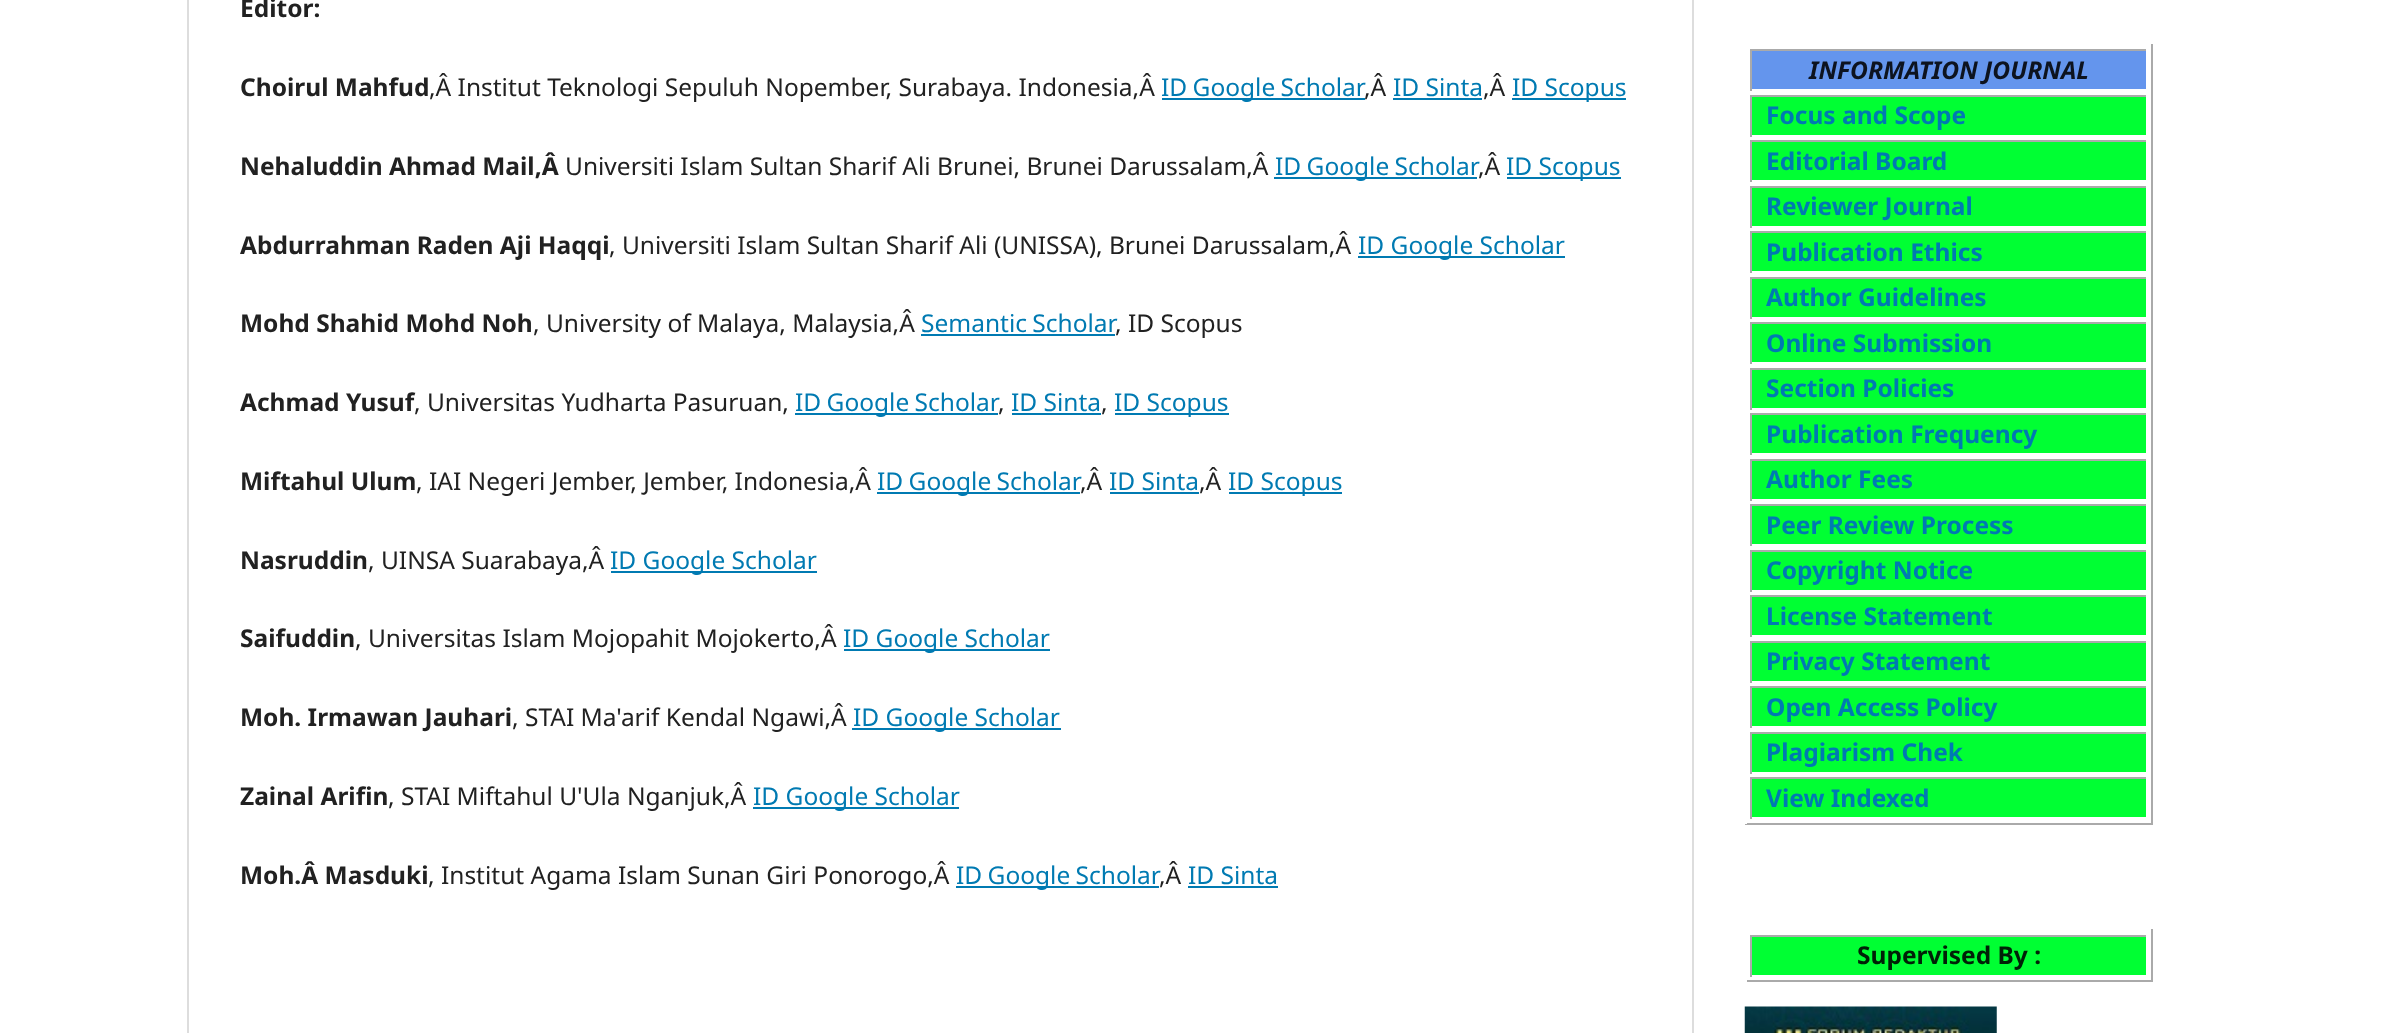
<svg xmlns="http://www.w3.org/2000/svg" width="2403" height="1033">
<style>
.a{font:bold 24.5px Noto Sans;fill:#212121}
.b{font:24.5px Noto Sans;fill:#212121}
.c{font:24.5px Noto Sans;fill:#007ab2}
.d{font:italic bold 24.5px Noto Sans;fill:#0d131f}
.e{font:bold 24.5px Noto Sans;fill:#007ab2}
.f{font:bold 24.5px Noto Sans;fill:#002107}
</style>
<rect width="100%" height="100%" fill="#fff"/>
<path fill="#ddd" d="M187 0h2v1033H187z"/>
<path fill="#007ab2" d="M1162 98h203v2H1162z"/>
<path fill="#007ab2" d="M1393 98h89v2H1393z"/>
<path fill="#007ab2" d="M1512 98h114v2H1512z"/>
<path fill="#007ab2" d="M1274 177h203v2H1274z"/>
<path fill="#007ab2" d="M1507 177h114v2H1507z"/>
<path fill="#007ab2" d="M1358 256h207v2H1358z"/>
<path fill="#007ab2" d="M921 334h194v2H921z"/>
<path fill="#007ab2" d="M795 413h203v2H795z"/>
<path fill="#007ab2" d="M1012 413h89v2H1012z"/>
<path fill="#007ab2" d="M1115 413h114v2H1115z"/>
<path fill="#007ab2" d="M877 492h203v2H877z"/>
<path fill="#007ab2" d="M1110 492h89v2H1110z"/>
<path fill="#007ab2" d="M1229 492h113v2H1229z"/>
<path fill="#007ab2" d="M611 571h206v2H611z"/>
<path fill="#007ab2" d="M844 649h206v2H844z"/>
<path fill="#007ab2" d="M852 728h209v2H852z"/>
<path fill="#007ab2" d="M753 807h206v2H753z"/>
<path fill="#007ab2" d="M956 886h203v2H956z"/>
<path fill="#007ab2" d="M1188 886h90v2H1188z"/>
<path fill="#ddd" d="M1692 0h2v1033H1692z"/>
<path fill="#aaa" d="M2151 44h2v780H2151z"/>
<path fill="#aaa" d="M1745 823h408v2H1745z"/>
<path fill="#fff" d="M1745 823h2v1H1745z"/>
<path fill="#6495ed" d="M1752 51h394v38H1752z"/>
<path fill="#aaa" d="M1750 49h397v2H1750z"/>
<path fill="#fff" d="M2146 49h1v2H2146z"/>
<path fill="#aaa" d="M1750 49h2v42H1750z"/>
<path fill="#0f3" d="M1752 97h394v38H1752z"/>
<path fill="#aaa" d="M1750 95h397v2H1750z"/>
<path fill="#fff" d="M2146 95h1v2H2146z"/>
<path fill="#aaa" d="M1750 95h2v42H1750z"/>
<path fill="#0f3" d="M1752 142h394v38H1752z"/>
<path fill="#aaa" d="M1750 140h397v2H1750z"/>
<path fill="#fff" d="M2146 140h1v2H2146z"/>
<path fill="#aaa" d="M1750 140h2v42H1750z"/>
<path fill="#0f3" d="M1752 188h394v38H1752z"/>
<path fill="#aaa" d="M1750 186h397v2H1750z"/>
<path fill="#fff" d="M2146 186h1v2H2146z"/>
<path fill="#aaa" d="M1750 186h2v42H1750z"/>
<path fill="#0f3" d="M1752 233h394v38H1752z"/>
<path fill="#aaa" d="M1750 231h397v2H1750z"/>
<path fill="#fff" d="M2146 231h1v2H2146z"/>
<path fill="#aaa" d="M1750 231h2v42H1750z"/>
<path fill="#0f3" d="M1752 279h394v38H1752z"/>
<path fill="#aaa" d="M1750 277h397v2H1750z"/>
<path fill="#fff" d="M2146 277h1v2H2146z"/>
<path fill="#aaa" d="M1750 277h2v42H1750z"/>
<path fill="#0f3" d="M1752 324h394v38H1752z"/>
<path fill="#aaa" d="M1750 322h397v2H1750z"/>
<path fill="#fff" d="M2146 322h1v2H2146z"/>
<path fill="#aaa" d="M1750 322h2v42H1750z"/>
<path fill="#0f3" d="M1752 370h394v38H1752z"/>
<path fill="#aaa" d="M1750 368h397v2H1750z"/>
<path fill="#fff" d="M2146 368h1v2H2146z"/>
<path fill="#aaa" d="M1750 368h2v42H1750z"/>
<path fill="#0f3" d="M1752 415h394v38H1752z"/>
<path fill="#aaa" d="M1750 413h397v2H1750z"/>
<path fill="#fff" d="M2146 413h1v2H2146z"/>
<path fill="#aaa" d="M1750 413h2v42H1750z"/>
<path fill="#0f3" d="M1752 461h394v38H1752z"/>
<path fill="#aaa" d="M1750 459h397v2H1750z"/>
<path fill="#fff" d="M2146 459h1v2H2146z"/>
<path fill="#aaa" d="M1750 459h2v42H1750z"/>
<path fill="#0f3" d="M1752 506h394v38H1752z"/>
<path fill="#aaa" d="M1750 504h397v2H1750z"/>
<path fill="#fff" d="M2146 504h1v2H2146z"/>
<path fill="#aaa" d="M1750 504h2v42H1750z"/>
<path fill="#0f3" d="M1752 552h394v38H1752z"/>
<path fill="#aaa" d="M1750 550h397v2H1750z"/>
<path fill="#fff" d="M2146 550h1v2H2146z"/>
<path fill="#aaa" d="M1750 550h2v42H1750z"/>
<path fill="#0f3" d="M1752 597h394v38H1752z"/>
<path fill="#aaa" d="M1750 595h397v2H1750z"/>
<path fill="#fff" d="M2146 595h1v2H2146z"/>
<path fill="#aaa" d="M1750 595h2v42H1750z"/>
<path fill="#0f3" d="M1752 643h394v38H1752z"/>
<path fill="#aaa" d="M1750 641h397v2H1750z"/>
<path fill="#fff" d="M2146 641h1v2H2146z"/>
<path fill="#aaa" d="M1750 641h2v42H1750z"/>
<path fill="#0f3" d="M1752 688h394v38H1752z"/>
<path fill="#aaa" d="M1750 686h397v2H1750z"/>
<path fill="#fff" d="M2146 686h1v2H2146z"/>
<path fill="#aaa" d="M1750 686h2v42H1750z"/>
<path fill="#0f3" d="M1752 734h394v38H1752z"/>
<path fill="#aaa" d="M1750 732h397v2H1750z"/>
<path fill="#fff" d="M2146 732h1v2H2146z"/>
<path fill="#aaa" d="M1750 732h2v42H1750z"/>
<path fill="#0f3" d="M1752 779h394v38H1752z"/>
<path fill="#aaa" d="M1750 777h397v2H1750z"/>
<path fill="#fff" d="M2146 777h1v2H2146z"/>
<path fill="#aaa" d="M1750 777h2v42H1750z"/>
<path fill="#aaa" d="M2151 929h2v53H2151z"/>
<path fill="#aaa" d="M1745 980h408v2H1745z"/>
<path fill="#fff" d="M1745 980h2v2H1745z"/>
<path fill="#0f3" d="M1752 937h394v38H1752z"/>
<path fill="#aaa" d="M1750 935h397v2H1750z"/>
<path fill="#fff" d="M2146 935h1v2H2146z"/>
<path fill="#aaa" d="M1750 935h2v42H1750z"/>
<image href="1.png" x="1744" y="1006" width="253" height="27"/>
<text class="a" x="240" y="17">Editor:</text>
<text class="a" x="240" y="96">Choirul Mahfud</text>
<text class="b" x="429" y="96">,Â Institut Teknologi Sepuluh Nopember, Surabaya. Indonesia,Â</text>
<text class="c" x="1161" y="96" word-spacing="-1">ID Google Scholar</text>
<text class="b" x="1364" y="96">,Â</text>
<text class="c" x="1393" y="96">ID Sinta</text>
<text class="b" x="1483" y="96">,Â</text>
<text class="c" x="1512" y="96">ID Scopus</text>
<text class="a" x="240" y="175">Nehaluddin Ahmad Mail,Â</text>
<text class="b" x="565" y="175">Universiti Islam Sultan Sharif Ali Brunei, Brunei Darussalam,Â</text>
<text class="c" x="1275" y="175" word-spacing="-1">ID Google Scholar</text>
<text class="b" x="1478" y="175">,Â</text>
<text class="c" x="1506" y="175">ID Scopus</text>
<text class="a" x="240" y="254">Abdurrahman Raden Aji Haqqi</text>
<text class="b" x="609" y="254">, Universiti Islam Sultan Sharif Ali (UNISSA), Brunei Darussalam,Â</text>
<text class="c" x="1358" y="254">ID Google Scholar</text>
<text class="a" x="240" y="332">Mohd Shahid Mohd Noh</text>
<text class="b" x="533" y="332">, University of Malaya, Malaysia,Â</text>
<text class="c" x="921" y="332" word-spacing="-1">Semantic Scholar</text>
<text class="b" x="1115" y="332">, ID Scopus</text>
<text class="a" x="240" y="411">Achmad Yusuf</text>
<text class="b" x="414" y="411">, Universitas Yudharta Pasuruan,</text>
<text class="c" x="795" y="411" word-spacing="-1">ID Google Scholar</text>
<text class="b" x="998" y="411">,</text>
<text class="c" x="1011" y="411">ID Sinta</text>
<text class="b" x="1101" y="411">,</text>
<text class="c" x="1114" y="411">ID Scopus</text>
<text class="a" x="240" y="490">Miftahul Ulum</text>
<text class="b" x="416" y="490">, IAI Negeri Jember, Jember, Indonesia,Â</text>
<text class="c" x="877" y="490" word-spacing="-1">ID Google Scholar</text>
<text class="b" x="1080" y="490">,Â</text>
<text class="c" x="1109" y="490">ID Sinta</text>
<text class="b" x="1199" y="490">,Â</text>
<text class="c" x="1228" y="490">ID Scopus</text>
<text class="a" x="240" y="569">Nasruddin</text>
<text class="b" x="368" y="569">, UINSA Suarabaya,Â</text>
<text class="c" x="610" y="569">ID Google Scholar</text>
<text class="a" x="240" y="647">Saifuddin</text>
<text class="b" x="355" y="647">, Universitas Islam Mojopahit Mojokerto,Â</text>
<text class="c" x="843" y="647">ID Google Scholar</text>
<text class="a" x="240" y="726">Moh. Irmawan Jauhari</text>
<text class="b" x="512" y="726">, STAI Ma'arif Kendal Ngawi,Â</text>
<text class="c" x="853" y="726">ID Google Scholar</text>
<text class="a" x="240" y="805">Zainal Arifin</text>
<text class="b" x="388" y="805">, STAI Miftahul U'Ula Nganjuk,Â</text>
<text class="c" x="753" y="805">ID Google Scholar</text>
<text class="a" x="240" y="884">Moh.Â Masduki</text>
<text class="b" x="428" y="884">, Institut Agama Islam Sunan Giri Ponorogo,Â</text>
<text class="c" x="956" y="884" word-spacing="-1">ID Google Scholar</text>
<text class="b" x="1159" y="884">,Â</text>
<text class="c" x="1188" y="884">ID Sinta</text>
<text class="d" x="1809" y="79">INFORMATION JOURNAL</text>
<text class="e" x="1766" y="124">Focus and Scope</text>
<text class="e" x="1766" y="170">Editorial Board</text>
<text class="e" x="1766" y="215">Reviewer Journal</text>
<text class="e" x="1766" y="261">Publication Ethics</text>
<text class="e" x="1766" y="306">Author Guidelines</text>
<text class="e" x="1766" y="352">Online Submission</text>
<text class="e" x="1766" y="397">Section Policies</text>
<text class="e" x="1766" y="443">Publication Frequency</text>
<text class="e" x="1766" y="488">Author Fees</text>
<text class="e" x="1766" y="534">Peer Review Process</text>
<text class="e" x="1766" y="579">Copyright Notice</text>
<text class="e" x="1766" y="625">License Statement</text>
<text class="e" x="1766" y="670">Privacy Statement</text>
<text class="e" x="1766" y="716">Open Access Policy</text>
<text class="e" x="1766" y="761">Plagiarism Chek</text>
<text class="e" x="1766" y="807">View Indexed</text>
<text class="f" x="1857" y="964">Supervised By :</text>
</svg>
